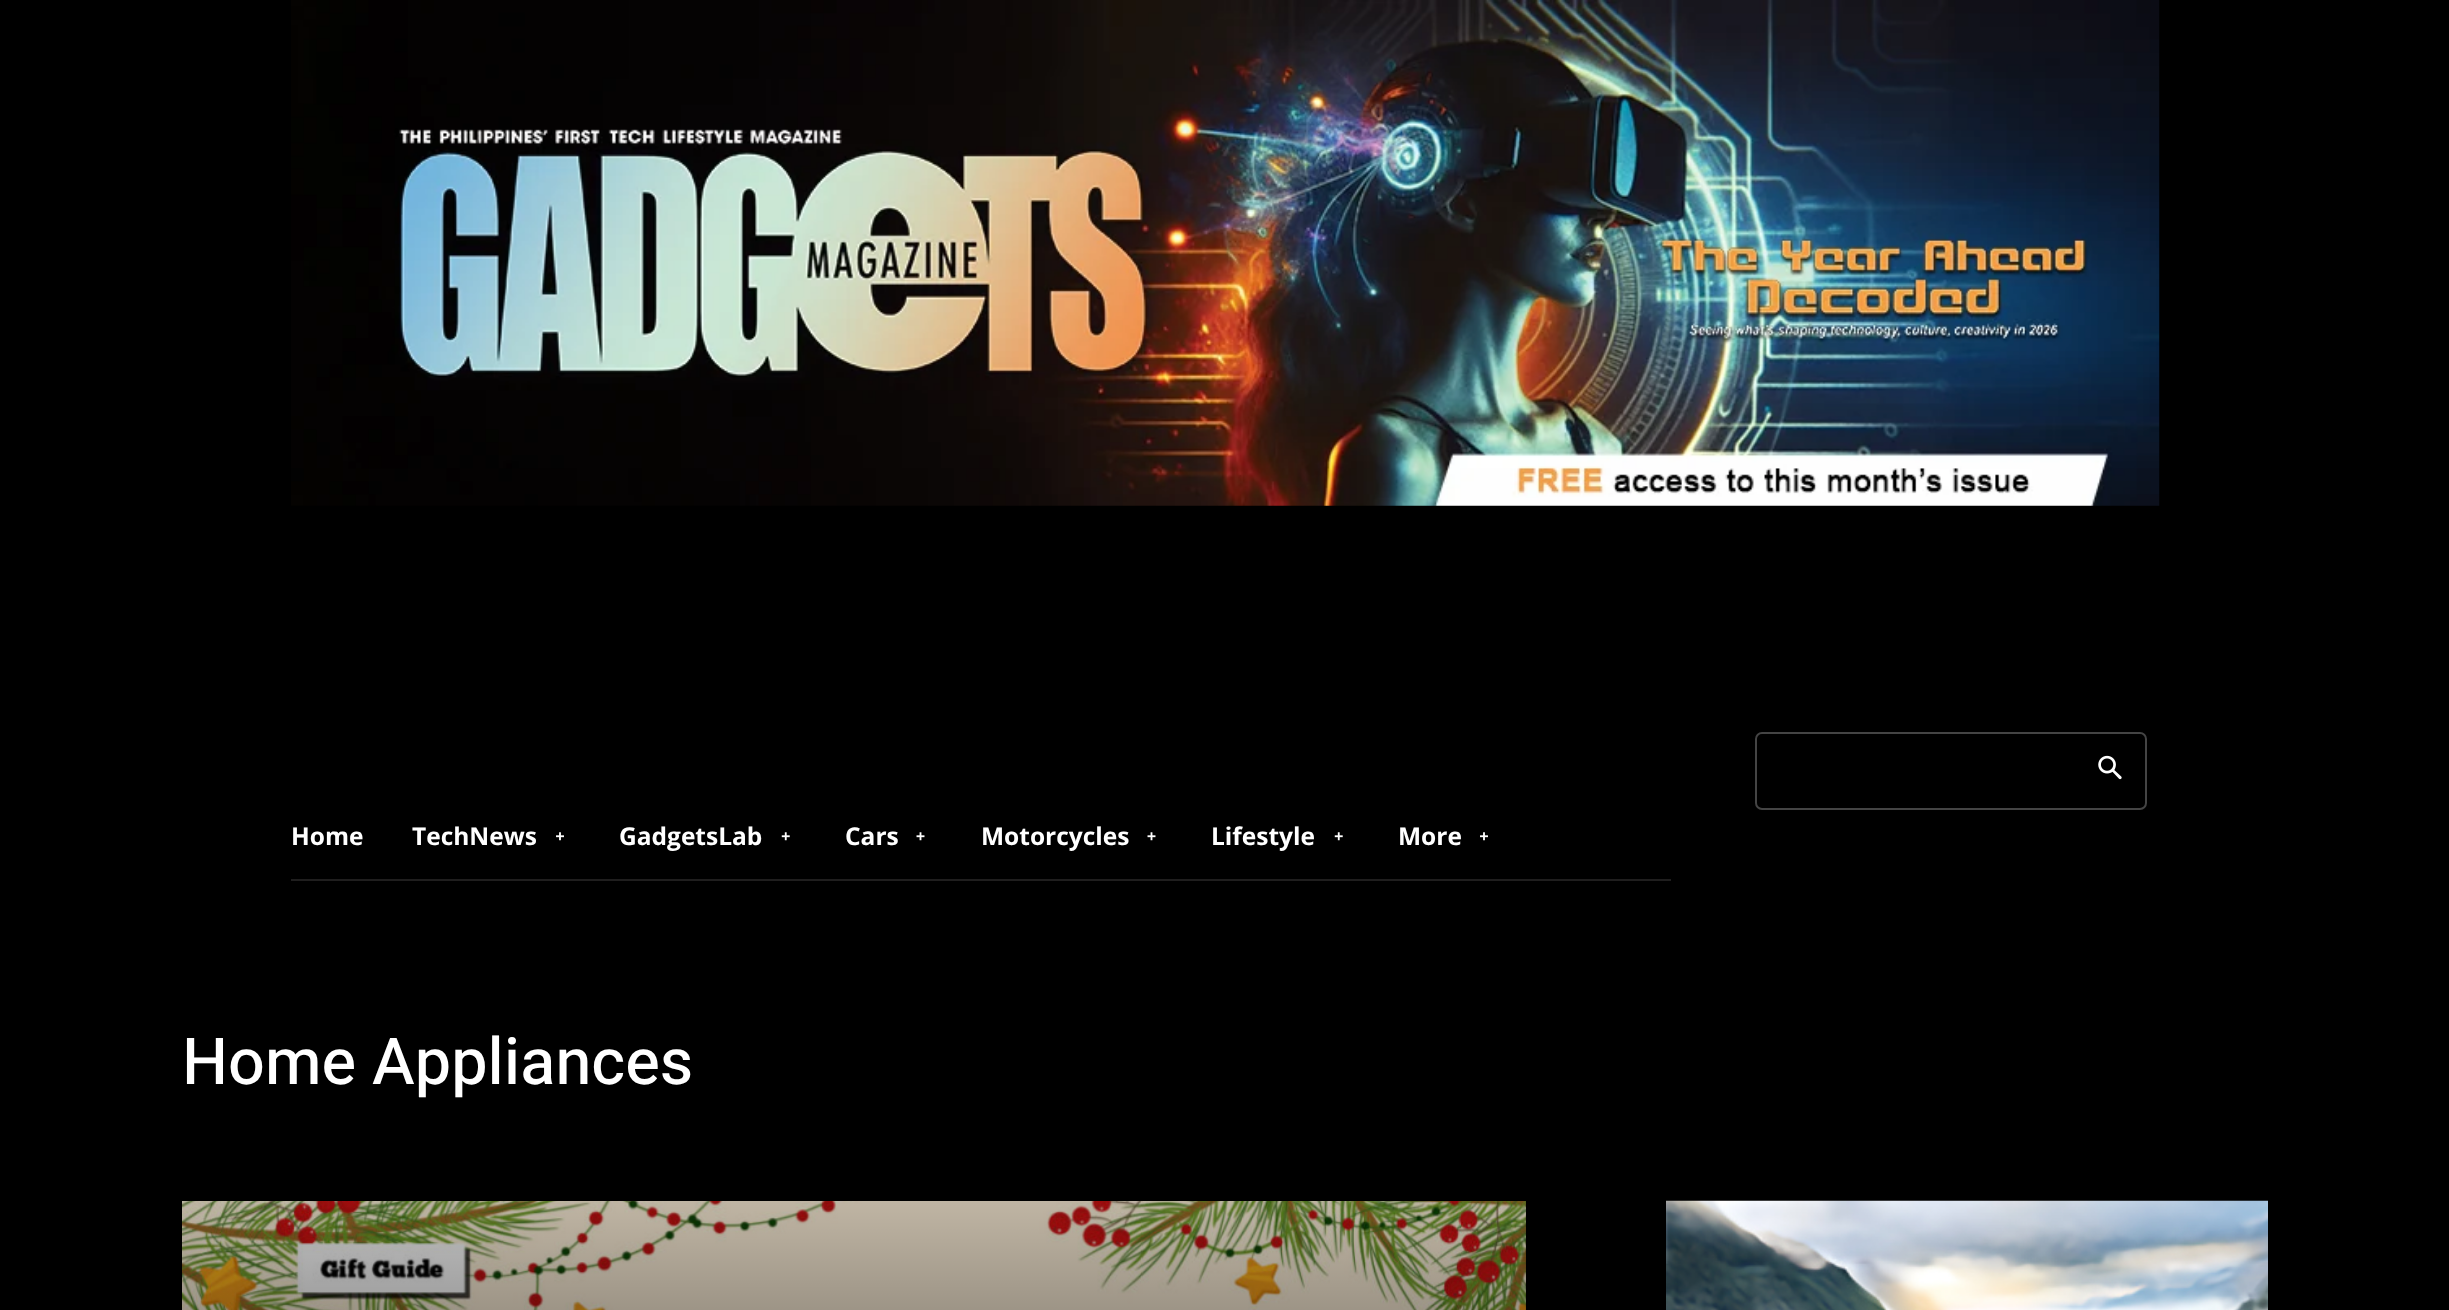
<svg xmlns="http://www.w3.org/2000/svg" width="2449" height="1310">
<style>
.a{font:bold 24.5px Open Sans;fill:#fff}
.b{font:500 64.75px Heebo;fill:#fff}
</style>
<defs>
<linearGradient id="g1" gradientUnits="userSpaceOnUse" x1="854" y1="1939" x2="854" y2="1201"><stop offset="0" stop-color="#000"/><stop offset="0.17" stop-color="#000"/><stop offset="1" stop-color="#000" stop-opacity="0.25"/></linearGradient>
</defs>
<rect width="100%" height="100%" fill="#000"/>
<image href="1.png" x="291" y="0" width="1869" height="506"/>
<rect fill="none" stroke="#444" stroke-width="2" x="1756" y="733" width="390" height="76" rx="6"/>
<image href="2.png" x="2098" y="755" width="24" height="25"/>
<image href="3.png" x="556" y="832" width="8" height="9"/>
<image href="4.png" x="781" y="832" width="9" height="9"/>
<image href="5.png" x="916" y="832" width="9" height="9"/>
<image href="5.png" x="1147" y="832" width="9" height="9"/>
<image href="4.png" x="1334" y="832" width="9" height="9"/>
<image href="3.png" x="1480" y="832" width="8" height="9"/>
<path fill="#1f1e1e" d="M291 879h1380v2H291z"/>
<image href="6.png" x="182" y="1201" width="1344" height="109"/>
<path fill="url(#g1)" d="M182 1201h1344v109H182z"/>
<image href="7.png" x="1666" y="1200" width="602" height="110"/>
<text class="a" x="291" y="845">Home</text>
<text class="a" x="412" y="845">TechNews</text>
<text class="a" x="619" y="845">GadgetsLab</text>
<text class="a" x="845" y="845">Cars</text>
<text class="a" x="981" y="845">Motorcycles</text>
<text class="a" x="1211" y="845">Lifestyle</text>
<text class="a" x="1398" y="845">More</text>
<text class="b" x="182" y="1084">Home Appliances</text>
</svg>
